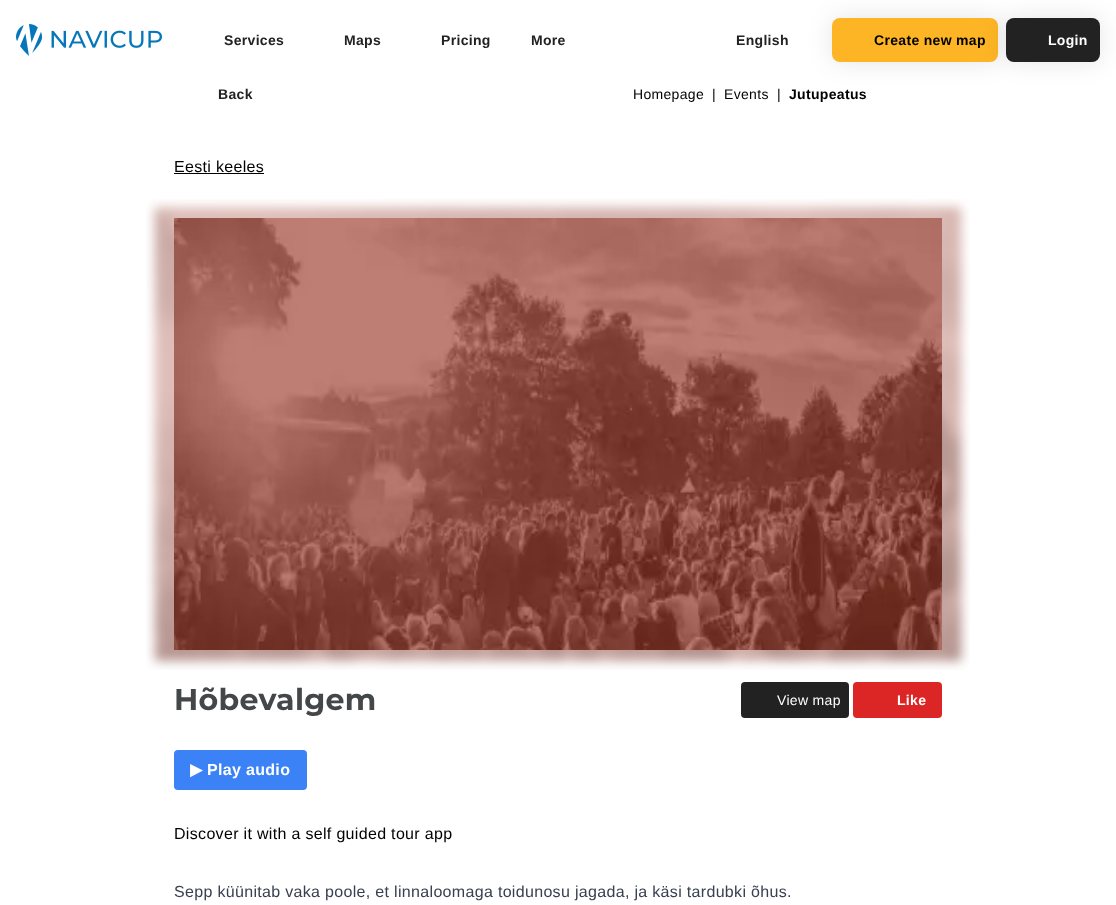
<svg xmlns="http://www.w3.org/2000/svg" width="1116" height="905">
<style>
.a{font:bold 14px Liberation Sans;letter-spacing:0.32px;fill:#222}
.b{font:bold 14px Liberation Sans;letter-spacing:0.32px;fill:#000}
.c{font:bold 14px Liberation Sans;letter-spacing:0.32px;fill:#fff}
.d{font:14px Liberation Sans;letter-spacing:0.32px;fill:#000}
.e{font:16px Liberation Sans;letter-spacing:0.32px;fill:#000}
.f{font:bold 30px Montserrat;letter-spacing:0.32px;fill:#44474a}
.g{font:14px Liberation Sans;letter-spacing:0.32px;fill:#fff}
.h{font:bold 16px DejaVu Sans;letter-spacing:0.32px;fill:#fff}
.i{font:bold 16px Liberation Sans;letter-spacing:0.32px;fill:#fff}
.j{font:16px Liberation Sans;letter-spacing:0.32px;fill:#374151}
</style>
<rect width="100%" height="100%" fill="#fff"/>
<image href="1.png" x="16" y="24" width="146" height="32"/>
<rect fill="#0000001a" filter="blur(12px)" x="832" y="18" width="166" height="44" rx="8"/>
<rect fill="#fdb525" x="832" y="18" width="166" height="44" rx="8"/>
<rect fill="#0000001a" filter="blur(12px)" x="1006" y="18" width="94" height="44" rx="8"/>
<rect fill="#222" x="1006" y="18" width="94" height="44" rx="8"/>
<path fill="#000" d="M174 173h90v1H174z"/>
<image href="2.png" x="146" y="199" width="824" height="471"/>
<image href="3.png" x="174" y="218" width="768" height="432"/>
<rect fill="#222" x="741" y="682" width="108" height="36" rx="4"/>
<rect fill="#dc2626" x="853" y="682" width="89" height="36" rx="4"/>
<rect fill="#3b82f6" x="174" y="750" width="133" height="40" rx="4"/>
<text class="a" x="224" y="45">Services</text>
<text class="a" x="344" y="45">Maps</text>
<text class="a" x="441" y="45">Pricing</text>
<text class="a" x="531" y="45">More</text>
<text class="a" x="736" y="45">English</text>
<text class="b" x="874" y="45">Create new map</text>
<text class="c" x="1048" y="45">Login</text>
<text class="a" x="218" y="99">Back</text>
<text class="d" x="633" y="99">Homepage</text>
<text class="d" x="712" y="99">|</text>
<text class="d" x="724" y="99">Events</text>
<text class="d" x="777" y="99">|</text>
<text class="b" x="789" y="99">Jutupeatus</text>
<text class="e" x="174" y="172">Eesti keeles</text>
<text class="f" x="174" y="710">Hõbevalgem</text>
<text class="g" x="777" y="705">View map</text>
<text class="c" x="897" y="705">Like</text>
<text class="h" x="190" y="775">▶</text>
<text class="i" x="207" y="775">Play audio</text>
<text class="e" x="174" y="839">Discover it with a self guided tour app</text>
<text class="j" x="174" y="897">Sepp küünitab vaka poole, et linnaloomaga toidunosu jagada, ja käsi tardubki õhus.</text>
</svg>
